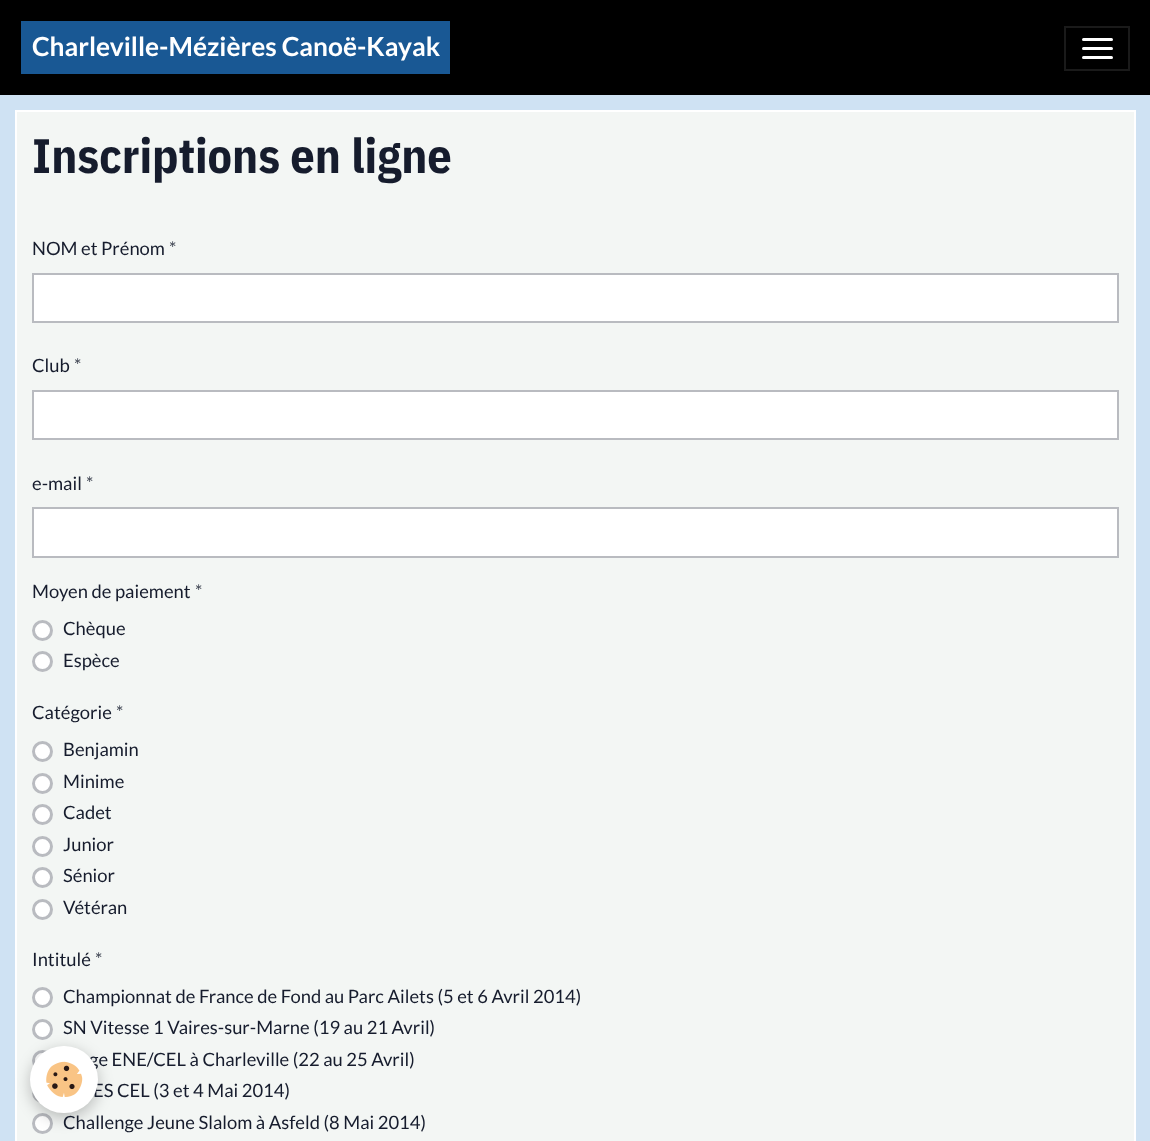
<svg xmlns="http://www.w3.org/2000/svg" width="1150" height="1141">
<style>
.a{font:bold 26.25px Lato;fill:#fff}
.b{font:bold 48.25px IBM Plex Sans Condensed;fill:#161c2d}
.c{font:18.4px Lato;fill:#161c2d}
.d{font:18.4px Lato;fill:#424855}
</style>
<rect width="100%" height="100%" fill="#cfe2f3"/>
<path fill="#000" d="M0 0h1150v95H0z"/>
<path fill="#195894" d="M21 21h429v53H21z"/>
<path fill="none" stroke="#1a1a1a" stroke-width="2" d="M1065 27h64v43H1065z"/>
<rect fill="#fff" x="1082" y="38" width="31" height="3" rx="1.5"/>
<rect fill="#fff" x="1082" y="47" width="31" height="3" rx="1.5"/>
<rect fill="#fff" x="1082" y="56" width="31" height="3" rx="1.5"/>
<path fill="#f3f6f4" stroke="#fff" stroke-width="2" d="M16 111h1119v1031H16z"/>
<path fill="#fff" stroke="#b9bbc0" stroke-width="2" d="M33 274h1085v48H33z"/>
<path fill="#fff" stroke="#b9bbc0" stroke-width="2" d="M33 391h1085v48H33z"/>
<path fill="#fff" stroke="#b9bbc0" stroke-width="2" d="M33 508h1085v49H33z"/>
<circle fill="#fff" stroke="#b9bbc0" stroke-width="3" cx="42.5" cy="630.5" r="9"/>
<circle fill="#fff" stroke="#b9bbc0" stroke-width="3" cx="42.5" cy="661.5" r="9"/>
<circle fill="#fff" stroke="#b9bbc0" stroke-width="3" cx="42.5" cy="751.5" r="9"/>
<circle fill="#fff" stroke="#b9bbc0" stroke-width="3" cx="42.5" cy="783.5" r="9"/>
<circle fill="#fff" stroke="#b9bbc0" stroke-width="3" cx="42.5" cy="814.5" r="9"/>
<circle fill="#fff" stroke="#b9bbc0" stroke-width="3" cx="42.5" cy="846.5" r="9"/>
<circle fill="#fff" stroke="#b9bbc0" stroke-width="3" cx="42.5" cy="877.5" r="9"/>
<circle fill="#fff" stroke="#b9bbc0" stroke-width="3" cx="42.5" cy="909.5" r="9"/>
<circle fill="#fff" stroke="#b9bbc0" stroke-width="3" cx="42.5" cy="997.5" r="9"/>
<circle fill="#fff" stroke="#b9bbc0" stroke-width="3" cx="42.5" cy="1029.5" r="9"/>
<circle fill="#fff" stroke="#b9bbc0" stroke-width="3" cx="42.5" cy="1060.5" r="9"/>
<circle fill="none" stroke="#b9bbc0" stroke-width="3" cx="42.5" cy="1092.5" r="9"/>
<circle fill="#fff" stroke="#b9bbc0" stroke-width="3" cx="42.5" cy="1123.5" r="9"/>
<rect fill="#0000003d" filter="blur(7.5px)" x="30" y="1050" width="68" height="68" rx="34"/>
<text class="a" x="32" y="56">Charleville-Mézières Canoë-Kayak</text>
<text class="b" x="32" y="173">Inscriptions en ligne</text>
<text class="c" x="32" y="255">NOM et Prénom</text>
<text class="d" x="169" y="255">*</text>
<text class="c" x="32" y="372">Club</text>
<text class="d" x="74" y="372">*</text>
<text class="c" x="32" y="490">e-mail</text>
<text class="d" x="86" y="490">*</text>
<text class="c" x="32" y="598">Moyen de paiement</text>
<text class="d" x="195" y="598">*</text>
<text class="c" x="63" y="635">Chèque</text>
<text class="c" x="63" y="667">Espèce</text>
<text class="c" x="32" y="719">Catégorie</text>
<text class="d" x="116" y="719">*</text>
<text class="c" x="63" y="756">Benjamin</text>
<text class="c" x="63" y="788">Minime</text>
<text class="c" x="63" y="819">Cadet</text>
<text class="c" x="63" y="851">Junior</text>
<text class="c" x="63" y="882">Sénior</text>
<text class="c" x="63" y="914">Vétéran</text>
<text class="c" x="32" y="966">Intitulé</text>
<text class="d" x="95" y="966">*</text>
<text class="c" x="63" y="1003">Championnat de France de Fond au Parc Ailets (5 et 6 Avril 2014)</text>
<text class="c" x="63" y="1034">SN Vitesse 1 Vaires-sur-Marne (19 au 21 Avril)</text>
<text class="c" x="89" y="1066">ge ENE/CEL à Charleville (22 au 25 Avril)</text>
<text class="c" x="93" y="1097">ES CEL (3 et 4 Mai 2014)</text>
<text class="c" x="63" y="1129">Challenge Jeune Slalom à Asfeld (8 Mai 2014)</text>
<rect fill="#fff" x="30" y="1046" width="68" height="67" rx="33.5"/>
<image href="1.png" x="46" y="1061" width="37" height="36"/>
</svg>
